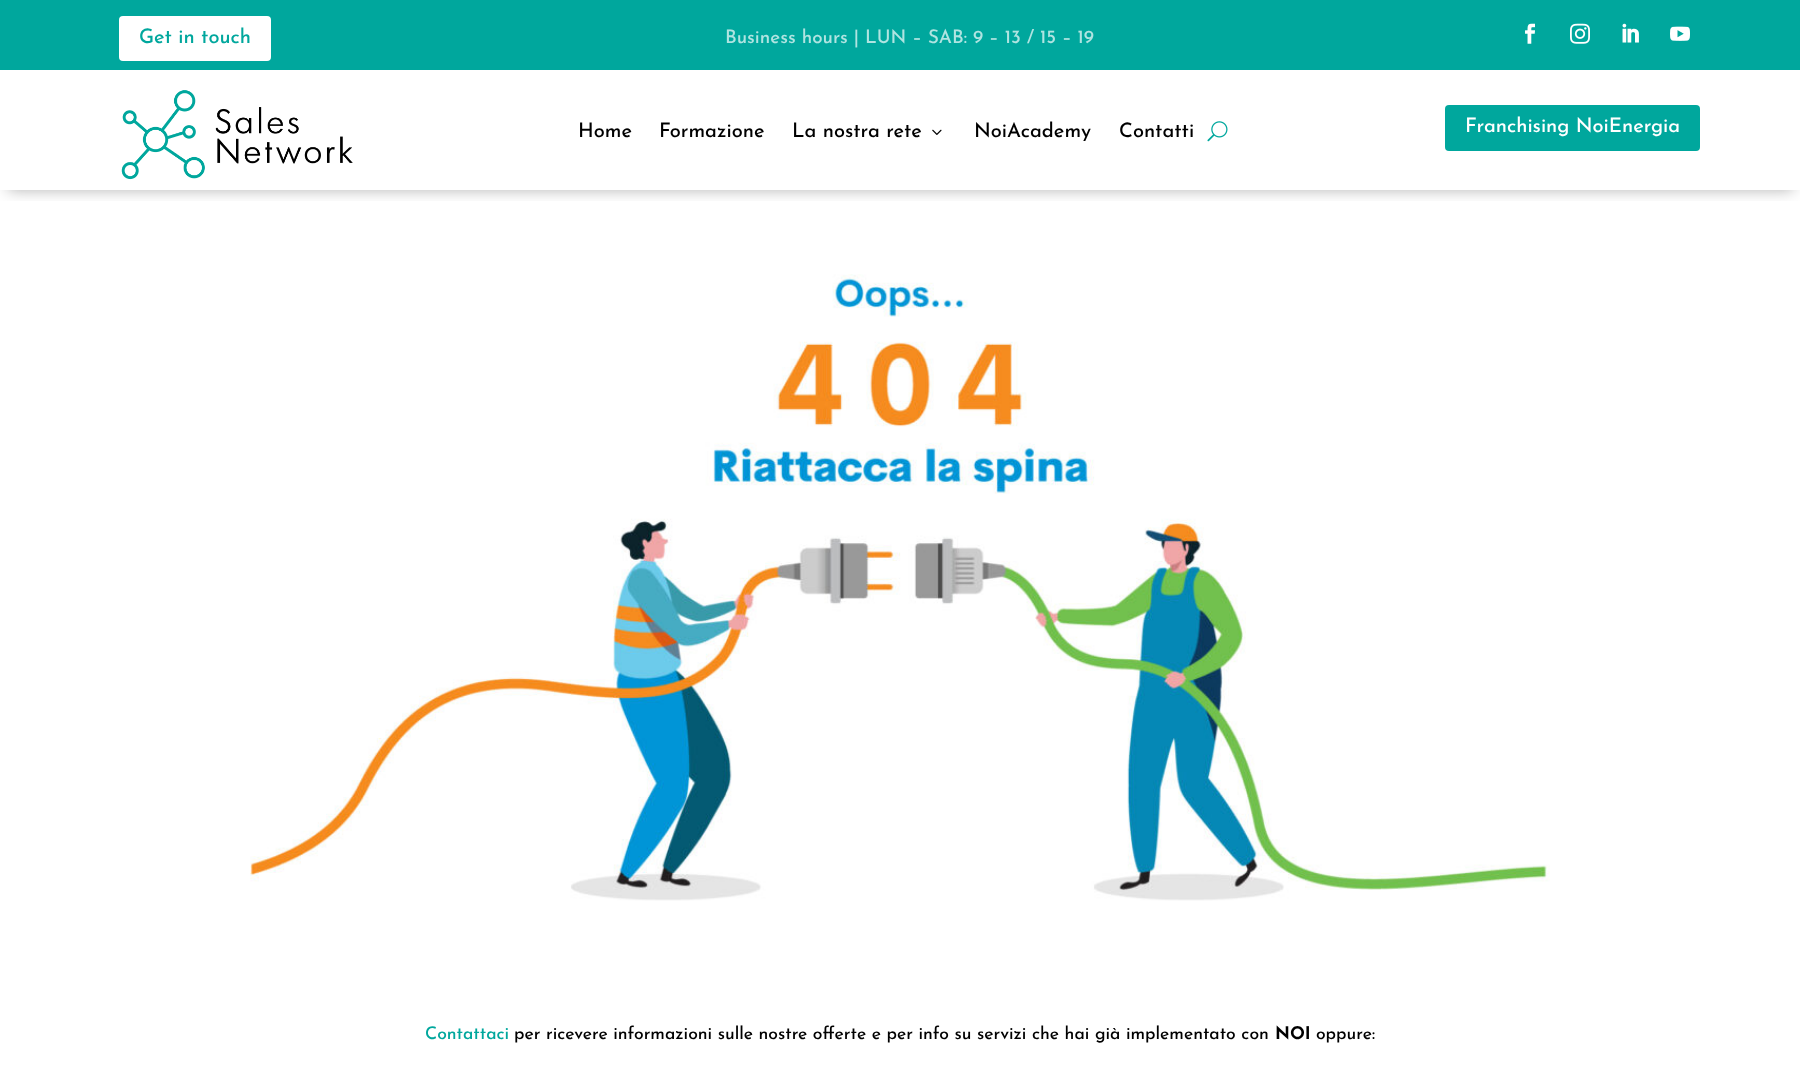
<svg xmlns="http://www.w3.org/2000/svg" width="1800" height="1083">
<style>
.a{font:100 20px Josefin Sans;fill:#00a79d}
.b{font:100 18.75px Josefin Sans;fill:#b0e4e1}
.c{font:100 20px Josefin Sans;fill:#000}
.d{font:100 20px Josefin Sans;fill:#fff}
.e{font:100 17.5px Josefin Sans;fill:#00a79d}
.f{font:100 17.5px Josefin Sans;fill:#000}
.g{font:100 17.5px 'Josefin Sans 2';fill:#000}
</style>
<defs>
<clipPath id="clip1"><path d="M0 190h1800v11H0z"/></clipPath>
</defs>
<rect width="100%" height="100%" fill="#fff"/>
<path fill="#00a79d" d="M0 0h1800v70H0z"/>
<rect fill="#fff" x="119" y="16" width="152" height="45" rx="4"/>
<image href="1.png" x="1525" y="23" width="10" height="21"/>
<image href="2.png" x="1570" y="23" width="20" height="21"/>
<image href="3.png" x="1622" y="23" width="17" height="20"/>
<image href="4.png" x="1670" y="26" width="20" height="15"/>
<g clip-path="url(#clip1)">
<path fill="#0000004d" filter="blur(7.5px)" d="M8 85h1785v105H8z"/>
</g>
<image href="5.png" x="121" y="90" width="232" height="90"/>
<image href="6.png" x="932" y="129" width="10" height="6"/>
<image href="7.png" x="1207" y="121" width="21" height="21"/>
<rect fill="#00a79d" x="1445" y="105" width="255" height="46" rx="4"/>
<image href="8.png" x="250" y="274" width="1300" height="627"/>
<text class="a" x="139" y="43">Get in touch</text>
<text class="b" x="725" y="43">Business hours | LUN – SAB: 9 – 13 / 15 – 19</text>
<text class="c" x="578" y="137">Home</text>
<text class="c" x="659" y="137">Formazione</text>
<text class="c" x="792" y="137">La nostra rete</text>
<text class="c" x="974" y="137">NoiAcademy</text>
<text class="c" x="1119" y="137">Contatti</text>
<text class="d" x="1465" y="132">Franchising NoiEnergia</text>
<text class="e" x="425" y="1039">Contattaci</text>
<text class="f" x="514" y="1039">per ricevere informazioni sulle nostre offerte e per info su servizi che hai già implementato con</text>
<text class="g" x="1275" y="1039">NOI</text>
<text class="f" x="1316" y="1039">oppure:</text>
</svg>
